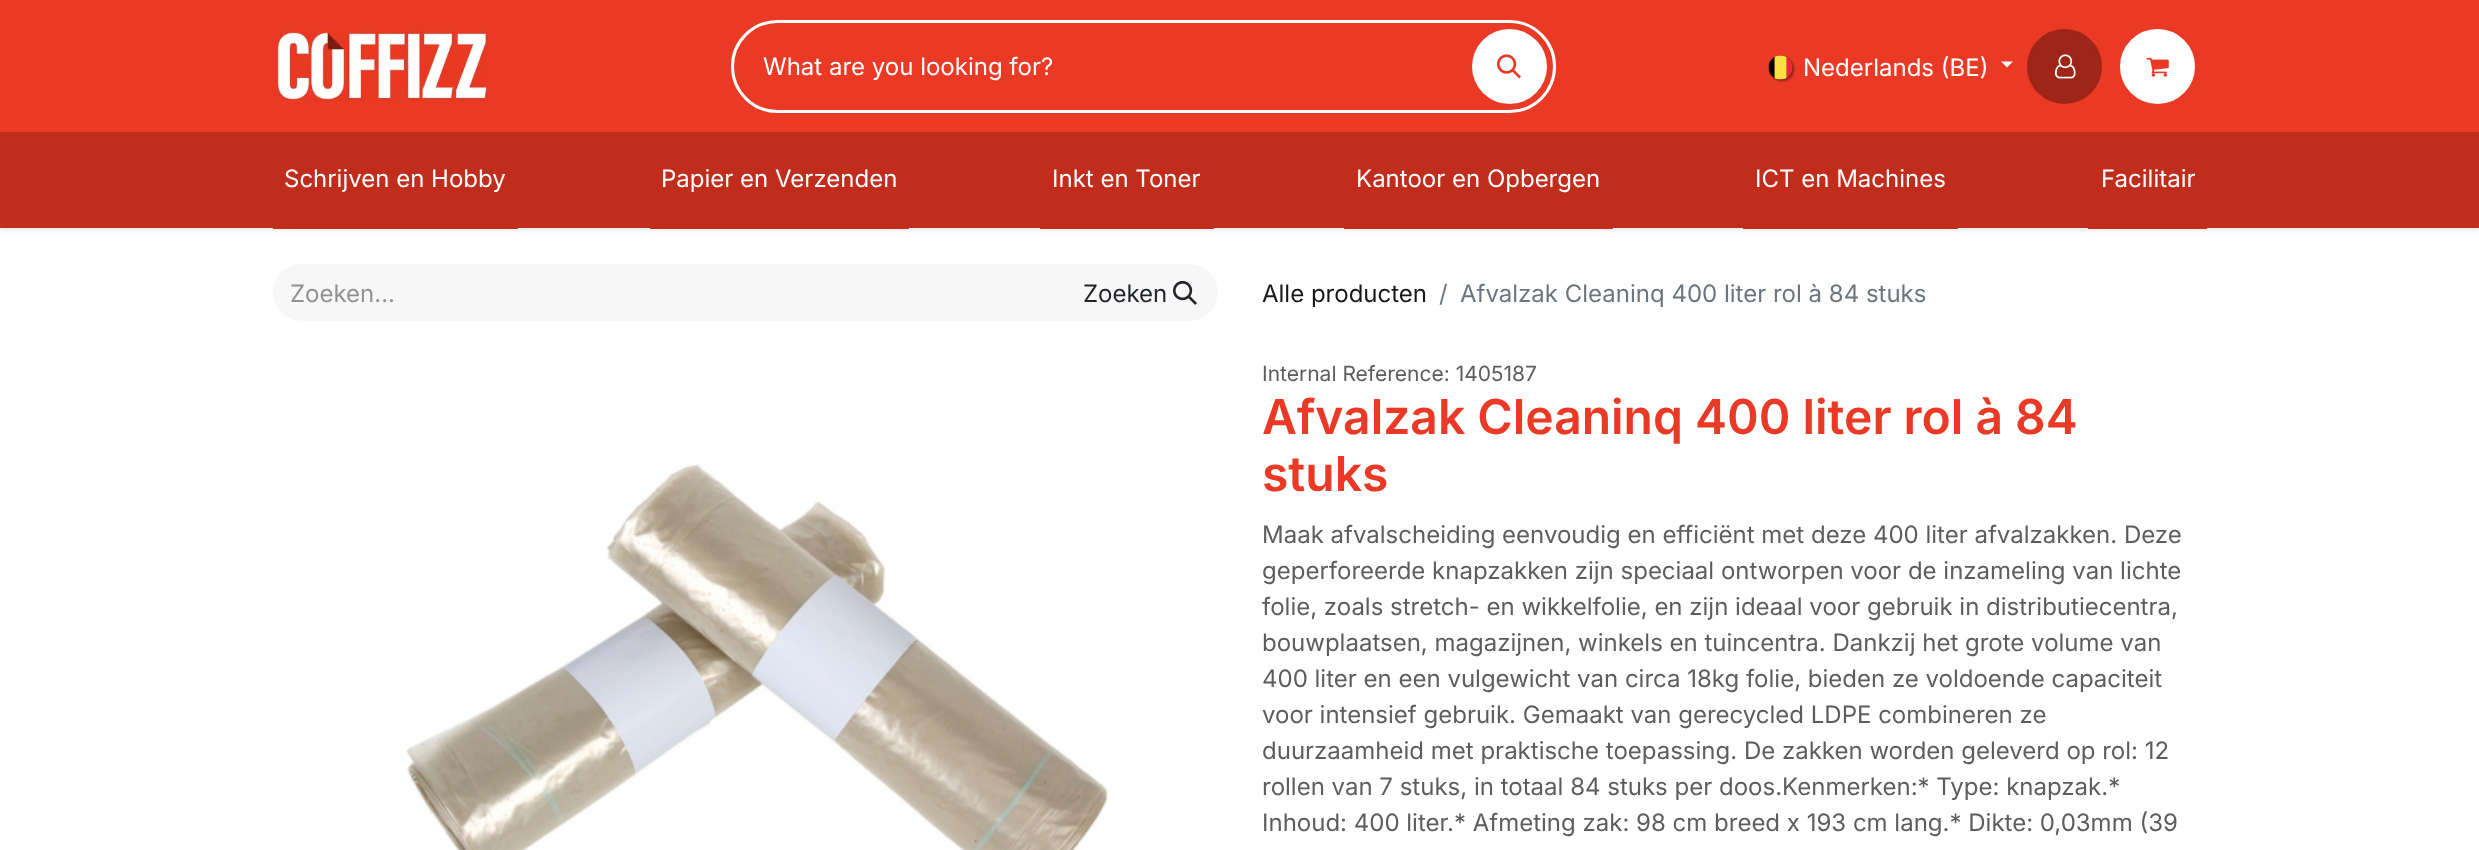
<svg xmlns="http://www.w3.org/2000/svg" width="2479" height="850">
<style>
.a{font:24px Inter;fill:#fff}
.b{font:24px Inter;fill:#909294}
.c{font:24px Inter;fill:#212529}
.d{font:24px Inter;fill:#171717}
.e{font:24px Inter;fill:#6c757d}
.f{font:21px Inter;fill:#5d5d5d}
.g{font:600 48px Inter;fill:#ea3924}
.h{font:24px Inter;fill:#5d5d5d}
</style>
<rect width="100%" height="100%" fill="#fff"/>
<path fill="#0000001a" filter="blur(2px)" d="M0 2h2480v228H0z"/>
<path fill="#ea3924" d="M0 0h2479v132H0z"/>
<image href="1.png" x="273" y="30" width="215" height="72"/>
<rect fill="none" stroke="#fff" stroke-width="3" x="732.5" y="21.5" width="822" height="90" rx="45"/>
<circle fill="#fff" cx="1509.5" cy="66.5" r="37.5"/>
<image href="2.png" x="1497" y="54" width="24" height="25"/>
<rect fill="#0000006e" filter="blur(1px)" x="1770" y="57" width="24" height="24" rx="12"/>
<image href="3.png" x="1768" y="55" width="25" height="25"/>
<path fill="#fff" d="M2001 61.5h12l-6 6z"/>
<circle fill="#9e2518" stroke="#9e2518" stroke-width="2" cx="2064.5" cy="66.5" r="36.5"/>
<image href="4.png" x="2055" y="54" width="21" height="25"/>
<circle fill="#fff" stroke="#fff" stroke-width="2" cx="2157.5" cy="66.5" r="36.5"/>
<image href="5.png" x="2146" y="57" width="23" height="20"/>
<path fill="#c02d1d" d="M0 132h2479v96H0z"/>
<path fill="#c02d1d" d="M273 228h245v1H273z"/>
<path fill="#c02d1d" d="M650 228h259v1H650z"/>
<path fill="#c02d1d" d="M1040 228h174v1H1040z"/>
<path fill="#c02d1d" d="M1344 228h269v1H1344z"/>
<path fill="#c02d1d" d="M1743 228h215v1H1743z"/>
<path fill="#c02d1d" d="M2088 228h119v1H2088z"/>
<path fill="#f7f7f7" d="M301.5 264h763.5v57h-763.5c-15.5 0-28.5-13-28.5-28.5c0-15.5 13-28.5 28.5-28.5z"/>
<path fill="#f7f7f7" d="M1064 264h125.5c15.5 0 28.5 13 28.5 28.5c0 15.5-13 28.5-28.5 28.5h-125.5z"/>
<image href="6.png" x="1173" y="280" width="24" height="25"/>
<image href="7.png" x="406" y="464" width="703" height="386"/>
<text class="a" x="763" y="75">What are you looking for?</text>
<text class="a" x="1803" y="76">Nederlands (BE)</text>
<text class="a" x="284" y="187">Schrijven en Hobby</text>
<text class="a" x="661" y="187">Papier en Verzenden</text>
<text class="a" x="1052" y="187">Inkt en Toner</text>
<text class="a" x="1356" y="187">Kantoor en Opbergen</text>
<text class="a" x="1755" y="187">ICT en Machines</text>
<text class="a" x="2101" y="187">Facilitair</text>
<text class="b" x="290" y="302">Zoeken...</text>
<text class="c" x="1083" y="302">Zoeken</text>
<text class="d" x="1262" y="302">Alle producten</text>
<text class="e" x="1439" y="302">/</text>
<text class="e" x="1460" y="302">Afvalzak Cleaninq 400 liter rol à 84 stuks</text>
<text class="f" x="1262" y="381">Internal Reference: 1405187</text>
<text class="g" x="1262" y="434">Afvalzak Cleaninq 400 liter rol à 84</text>
<text class="g" x="1262" y="491">stuks</text>
<text class="h" x="1262" y="543">Maak afvalscheiding eenvoudig en efficiënt met deze 400 liter afvalzakken. Deze</text>
<text class="h" x="1262" y="579">geperforeerde knapzakken zijn speciaal ontworpen voor de inzameling van lichte</text>
<text class="h" x="1262" y="615">folie, zoals stretch- en wikkelfolie, en zijn ideaal voor gebruik in distributiecentra,</text>
<text class="h" x="1262" y="651">bouwplaatsen, magazijnen, winkels en tuincentra. Dankzij het grote volume van</text>
<text class="h" x="1262" y="687">400 liter en een vulgewicht van circa 18kg folie, bieden ze voldoende capaciteit</text>
<text class="h" x="1262" y="723">voor intensief gebruik. Gemaakt van gerecycled LDPE combineren ze</text>
<text class="h" x="1262" y="759">duurzaamheid met praktische toepassing. De zakken worden geleverd op rol: 12</text>
<text class="h" x="1262" y="795">rollen van 7 stuks, in totaal 84 stuks per doos.Kenmerken:* Type: knapzak.*</text>
<text class="h" x="1262" y="831">Inhoud: 400 liter.* Afmeting zak: 98 cm breed x 193 cm lang.* Dikte: 0,03mm (39</text>
</svg>
